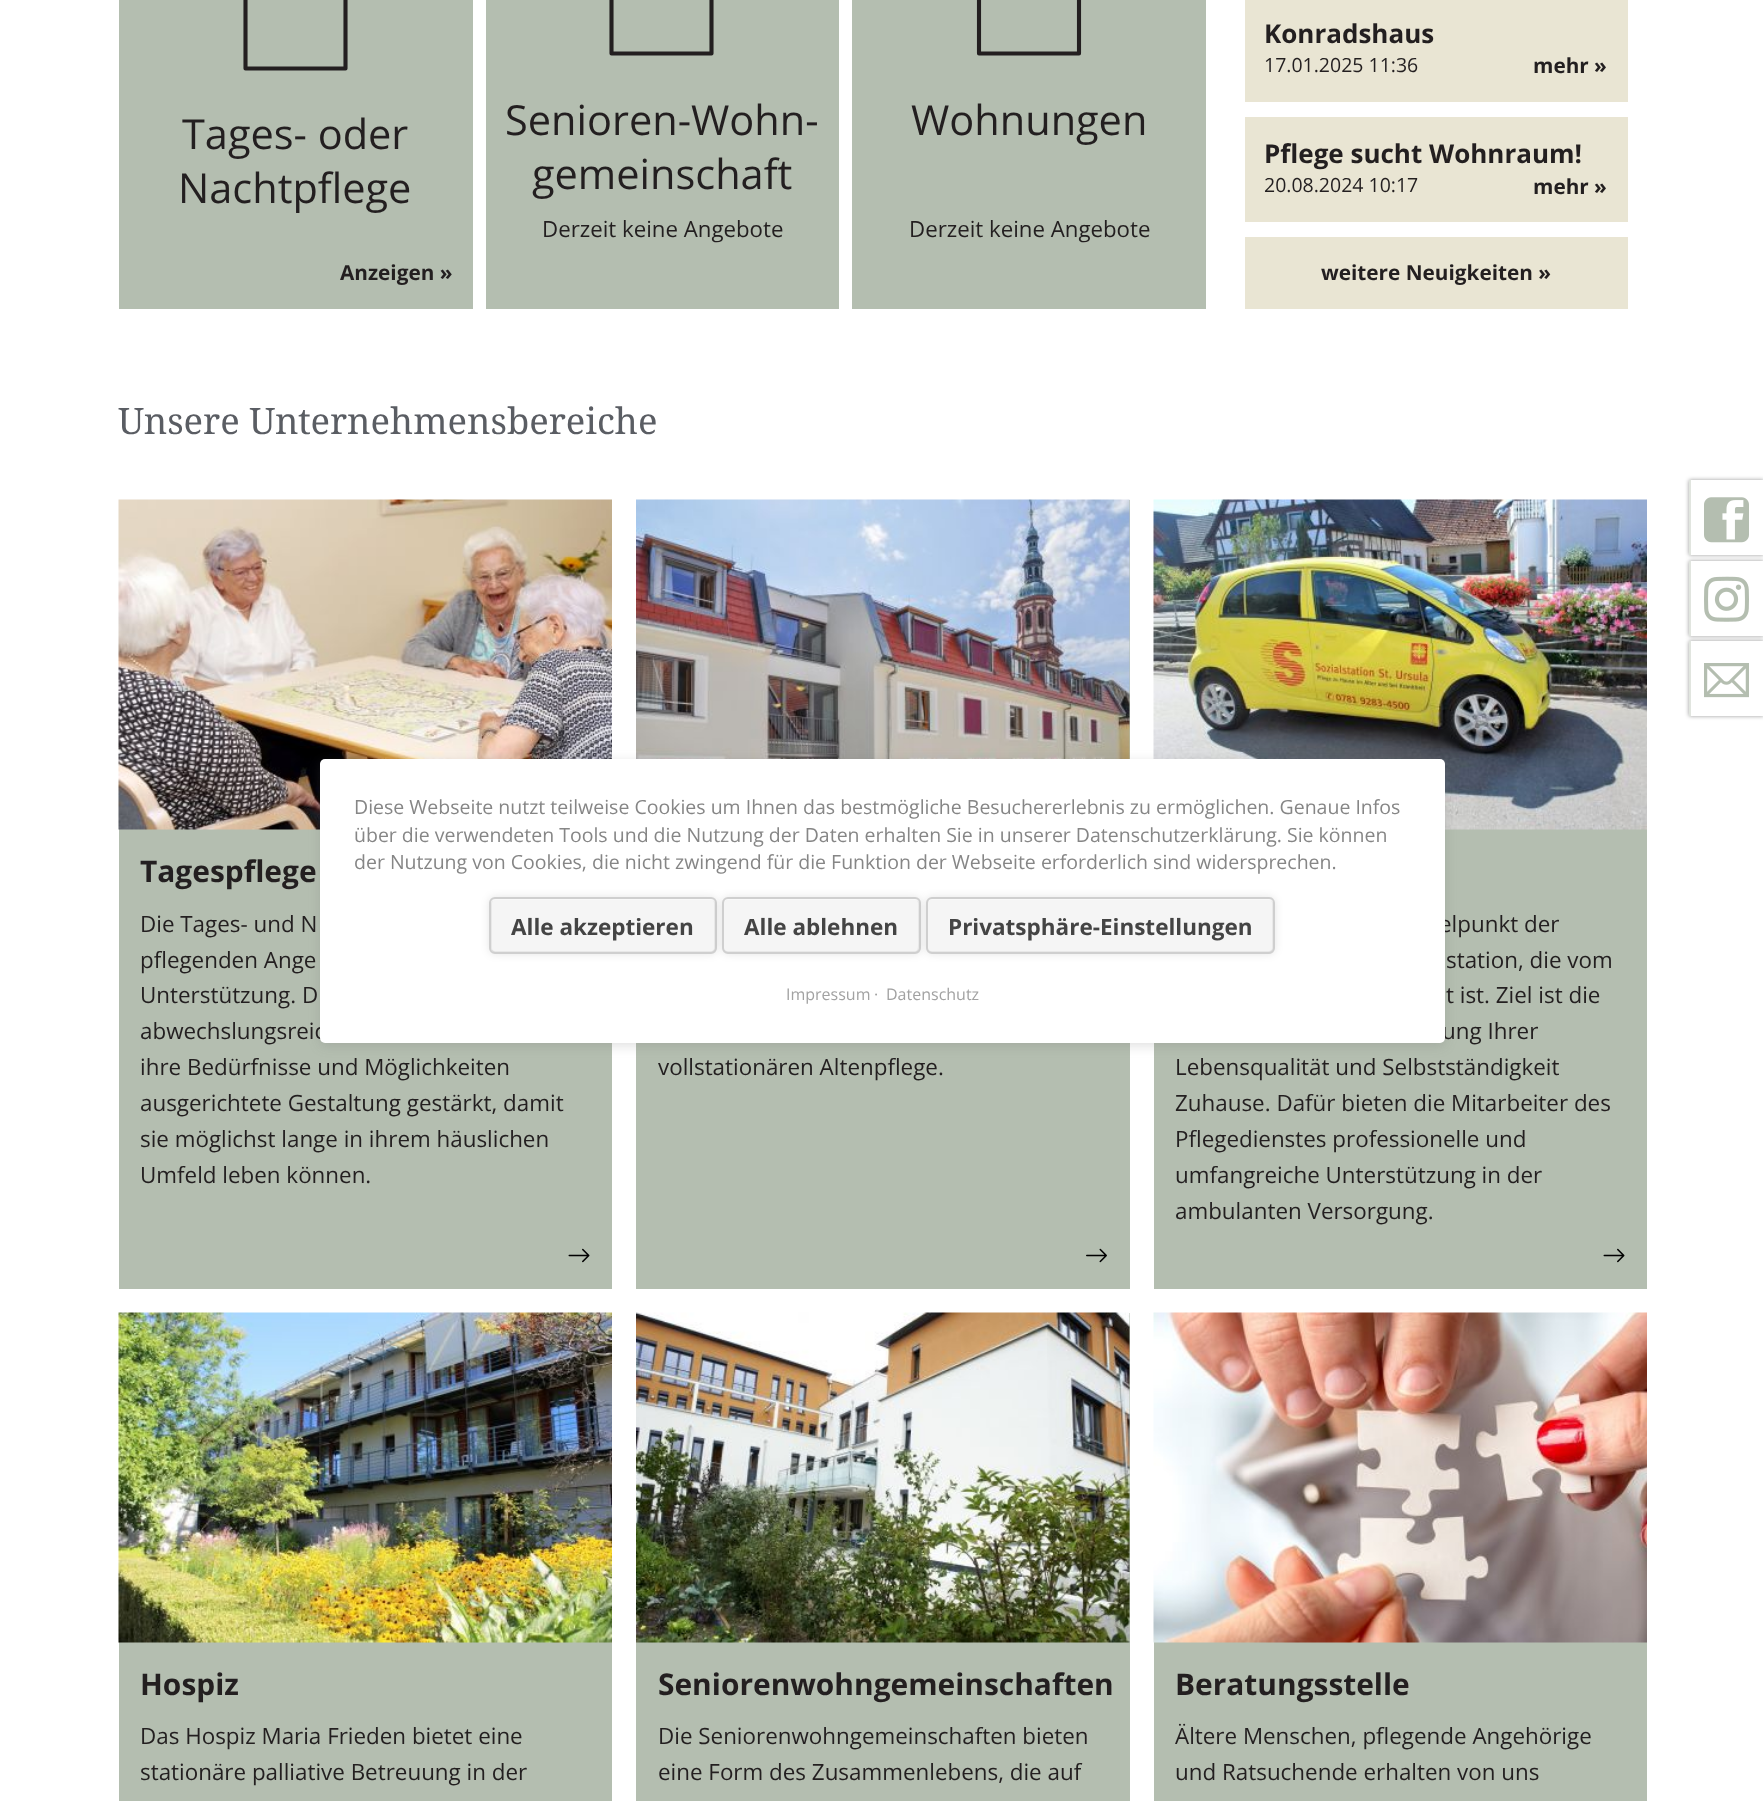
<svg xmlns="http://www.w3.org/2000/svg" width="1763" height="1801">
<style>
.a{font:41.5px Open Sans;fill:#231f20}
.b{font:bold 20.75px Open Sans;fill:#231f20}
.c{font:22.25px Open Sans;fill:#231f20}
.d{font:bold 26px Open Sans;fill:#231f20}
.e{font:19.5px Open Sans;fill:#231f20}
.f{font:36.4px Droid Serif;fill:#5a5d63}
.g{font:bold 29.9px Open Sans;fill:#231f20}
.h{font:22.4px Open Sans;fill:#231f20}
.i{font:19.5px Open Sans;fill:#868686}
.j{font:bold 22.5px Open Sans;fill:#444}
.k{font:16px Open Sans;fill:#a2a2a2}
</style>
<rect width="100%" height="100%" fill="#fff"/>
<path fill="#b4beb0" d="M119 0h354v309H119z"/>
<path fill="none" stroke="#231f20" stroke-width="4.1" stroke-linecap="round" stroke-linejoin="round" d="M245.5-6.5v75h100v-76.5"/>
<path fill="#b4beb0" d="M486 0h353v309H486z"/>
<path fill="none" stroke="#231f20" stroke-width="4.1" stroke-linecap="round" stroke-linejoin="round" d="M611.5-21.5v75h100v-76.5"/>
<path fill="#b4beb0" d="M852 0h354v309H852z"/>
<path fill="none" stroke="#231f20" stroke-width="4.1" stroke-linecap="round" stroke-linejoin="round" d="M979-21.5v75h100v-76.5"/>
<path fill="#e9e5d3" d="M1245 0h383v102H1245z"/>
<path fill="#e9e5d3" d="M1245 117h383v105H1245z"/>
<path fill="#e9e5d3" d="M1245 237h383v72H1245z"/>
<path fill="#b4beb0" d="M119 829h493v460H119z"/>
<image href="1.png" x="118" y="499" width="494" height="331"/>
<image href="2.png" x="568" y="1248" width="22" height="15"/>
<path fill="#b4beb0" d="M636 500h494v789H636z"/>
<image href="3.png" x="636" y="499" width="494" height="260"/>
<image href="4.png" x="1086" y="1248" width="21" height="15"/>
<path fill="#b4beb0" d="M1154 829h493v460H1154z"/>
<image href="5.png" x="1153" y="499" width="494" height="331"/>
<image href="2.png" x="1603" y="1248" width="22" height="15"/>
<path fill="#b4beb0" d="M119 1642h493v159H119z"/>
<image href="6.png" x="118" y="1312" width="494" height="331"/>
<path fill="#b4beb0" d="M636 1313h494v488H636z"/>
<image href="7.png" x="636" y="1312" width="494" height="331"/>
<path fill="#b4beb0" d="M1154 1642h493v159H1154z"/>
<image href="8.png" x="1153" y="1312" width="494" height="331"/>
<path fill="#00000066" filter="blur(2px)" d="M1689 480h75v75H1689z"/>
<path fill="#fff" d="M1691 480h72v75H1691z"/>
<path fill="#e1e5df" d="M1689 480h2v75H1689z"/>
<image href="9.png" x="1704" y="497" width="45" height="46"/>
<path fill="#00000066" filter="blur(2px)" d="M1689 561h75v75H1689z"/>
<path fill="#fff" d="M1691 561h72v75H1691z"/>
<path fill="#e1e5df" d="M1689 561h2v75H1689z"/>
<image href="10.png" x="1704" y="576" width="45" height="46"/>
<path fill="#00000066" filter="blur(2px)" d="M1689 641h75v75H1689z"/>
<path fill="#fff" d="M1691 641h72v75H1691z"/>
<path fill="#e1e5df" d="M1689 641h2v75H1689z"/>
<image href="11.png" x="1704" y="663" width="45" height="35"/>
<rect fill="#63636333" filter="blur(6px)" x="320" y="762" width="1125" height="284" rx="5"/>
<text class="a" x="182" y="149">Tages- oder</text>
<text class="a" x="178" y="203">Nachtpflege</text>
<text class="b" x="340" y="280">Anzeigen »</text>
<text class="a" x="505" y="135">Senioren-Wohn-</text>
<text class="a" x="532" y="189">gemeinschaft</text>
<text class="c" x="542" y="237">Derzeit keine Angebote</text>
<text class="a" x="911" y="135">Wohnungen</text>
<text class="c" x="909" y="237">Derzeit keine Angebote</text>
<text class="d" x="1264" y="43">Konradshaus</text>
<text class="e" x="1264" y="72">17.01.2025 11:36</text>
<text class="b" x="1533" y="73">mehr »</text>
<text class="d" x="1264" y="163">Pflege sucht Wohnraum!</text>
<text class="e" x="1264" y="192">20.08.2024 10:17</text>
<text class="b" x="1533" y="194">mehr »</text>
<text class="b" x="1321" y="280">weitere Neuigkeiten »</text>
<text class="f" x="118" y="434">Unsere Unternehmensbereiche</text>
<text class="g" x="140" y="882">Tagespflege</text>
<text class="h" x="140" y="932">Die Tages- und N</text>
<text class="h" x="140" y="968">pflegenden Ange</text>
<text class="h" x="140" y="1003">Unterstützung. D</text>
<text class="h" x="140" y="1039">abwechslungsreic</text>
<text class="h" x="140" y="1075">ihre Bedürfnisse und Möglichkeiten</text>
<text class="h" x="140" y="1111">ausgerichtete Gestaltung gestärkt, damit</text>
<text class="h" x="140" y="1147">sie möglichst lange in ihrem häuslichen</text>
<text class="h" x="140" y="1183">Umfeld leben können.</text>
<text class="h" x="658" y="1075">vollstationären Altenpflege.</text>
<text class="h" x="1439" y="932">elpunkt der</text>
<text class="h" x="1446" y="968">station, die vom</text>
<text class="h" x="1446" y="1003">t ist. Ziel ist die</text>
<text class="h" x="1442" y="1039">ung Ihrer</text>
<text class="h" x="1175" y="1075">Lebensqualität und Selbstständigkeit</text>
<text class="h" x="1175" y="1111">Zuhause. Dafür bieten die Mitarbeiter des</text>
<text class="h" x="1175" y="1147">Pflegedienstes professionelle und</text>
<text class="h" x="1175" y="1183">umfangreiche Unterstützung in der</text>
<text class="h" x="1175" y="1219">ambulanten Versorgung.</text>
<text class="g" x="140" y="1695">Hospiz</text>
<text class="h" x="140" y="1744">Das Hospiz Maria Frieden bietet eine</text>
<text class="h" x="140" y="1780">stationäre palliative Betreuung in der</text>
<text class="g" x="658" y="1695">Seniorenwohngemeinschaften</text>
<text class="h" x="658" y="1744">Die Seniorenwohngemeinschaften bieten</text>
<text class="h" x="658" y="1780">eine Form des Zusammenlebens, die auf</text>
<text class="g" x="1175" y="1695">Beratungsstelle</text>
<text class="h" x="1175" y="1744">Ältere Menschen, pflegende Angehörige</text>
<text class="h" x="1175" y="1780">und Ratsuchende erhalten von uns</text>
<rect fill="#fff" x="320" y="759" width="1125" height="284" rx="5"/>
<text class="i" x="354" y="814">Diese Webseite nutzt teilweise Cookies um Ihnen das bestmögliche Besuchererlebnis zu ermöglichen. Genaue Infos</text>
<text class="i" x="354" y="842">über die verwendeten Tools und die Nutzung der Daten erhalten Sie in unserer Datenschutzerklärung. Sie können</text>
<text class="i" x="354" y="869">der Nutzung von Cookies, die nicht zwingend für die Funktion der Webseite erforderlich sind widersprechen.</text>
<rect fill="#0000001a" filter="blur(4px)" x="489" y="897" width="228" height="57" rx="6"/>
<rect fill="#f5f5f5" x="489" y="897" width="228" height="57" rx="6"/>
<path fill="#e9e9e9" d="M493 952h217c2 0 4-2 4-4v-45c0-1-1-3-2-4c2 1 4 3 4 5v44c0 3-2 5-5 5h-215c-1 0-2 0-3-1z"/>
<path fill="#0000000d" d="M493 900l-1 3v45c0 2 2 4 4 4h216l3-1c-1 1-3 2-4 2h-215c-3 0-5-2-5-5v-44c0-2 1-3 2-4z"/>
<path fill="#0000000d" d="M491 949c1 2 3 4 5 4h215c3 0 5-2 5-5v-2c0 3-3 5-5 5h-216c-1 0-3-1-4-2z"/>
<path fill="#ffffff66" d="M495 900h216c2 0 5 2 5 4c0-3-2-5-5-5h-215c-2 0-3 1-4 2z"/>
<rect fill="none" stroke="#cfcfcf" stroke-width="2" x="490" y="898" width="226" height="55" rx="5"/>
<text class="j" x="511" y="935">Alle akzeptieren</text>
<rect fill="#0000001a" filter="blur(4px)" x="722" y="897" width="199" height="57" rx="6"/>
<rect fill="#f5f5f5" x="722" y="897" width="199" height="57" rx="6"/>
<path fill="#e9e9e9" d="M725 952h158c40 0 35 8 35-26v-16c0-3 1-8-2-11c5 2 4 9 4 12v30c0 3 1 12-5 12h-187z"/>
<path fill="#0000000d" d="M726 899c-1 1-2 3-2 4v45c0 2 3 4 5 4h187l3-1c-1 1-3 2-4 2h-187c-3 0-5-2-5-5v-44c0-2 1-4 3-5z"/>
<path fill="#0000000d" d="M723 946v2c0 3 2 5 5 5h187c3 0 5-2 5-5v-2c0 3-3 5-5 5h-187c-3 0-5-2-5-5z"/>
<path fill="#ffffff66" d="M728 900h187c2 0 5 2 5 4c0-3-2-5-5-5h-187c-3 0-5 2-5 5c0-2 2-4 5-4z"/>
<rect fill="none" stroke="#cfcfcf" stroke-width="2" x="723" y="898" width="197" height="55" rx="5"/>
<text class="j" x="744" y="935">Alle ablehnen</text>
<rect fill="#0000001a" filter="blur(4px)" x="926" y="897" width="349" height="57" rx="6"/>
<rect fill="#f5f5f5" x="926" y="897" width="349" height="57" rx="6"/>
<path fill="#e9e9e9" d="M929 952h339c2 0 4-2 4-4v-45c0-1-1-3-2-4c2 1 4 3 4 5v44c0 3-2 5-5 5h-337c-1 0-2 0-3-1z"/>
<path fill="#0000000d" d="M930 899c-1 1-2 3-2 4v45c0 2 3 4 5 4h337l3-1c-1 1-3 2-4 2h-337c-3 0-5-2-5-5v-44c0-2 1-4 3-5z"/>
<path fill="#0000000d" d="M927 946c0 3 1 7 5 7h337c4 0 5-4 5-7c0 3-3 5-5 5h-337c-3 0-5-2-5-5z"/>
<path fill="#ffffff66" d="M932 900h337c2 0 5 2 5 4c0-3-2-5-5-5h-337c-3 0-5 2-5 5c0-2 2-4 5-4z"/>
<rect fill="none" stroke="#cfcfcf" stroke-width="2" x="927" y="898" width="347" height="55" rx="5"/>
<text class="j" x="948" y="935">Privatsphäre-Einstellungen</text>
<text class="k" x="786" y="1000">Impressum</text>
<text class="k" x="874" y="1000">·</text>
<text class="k" x="886" y="1000">Datenschutz</text>
</svg>
